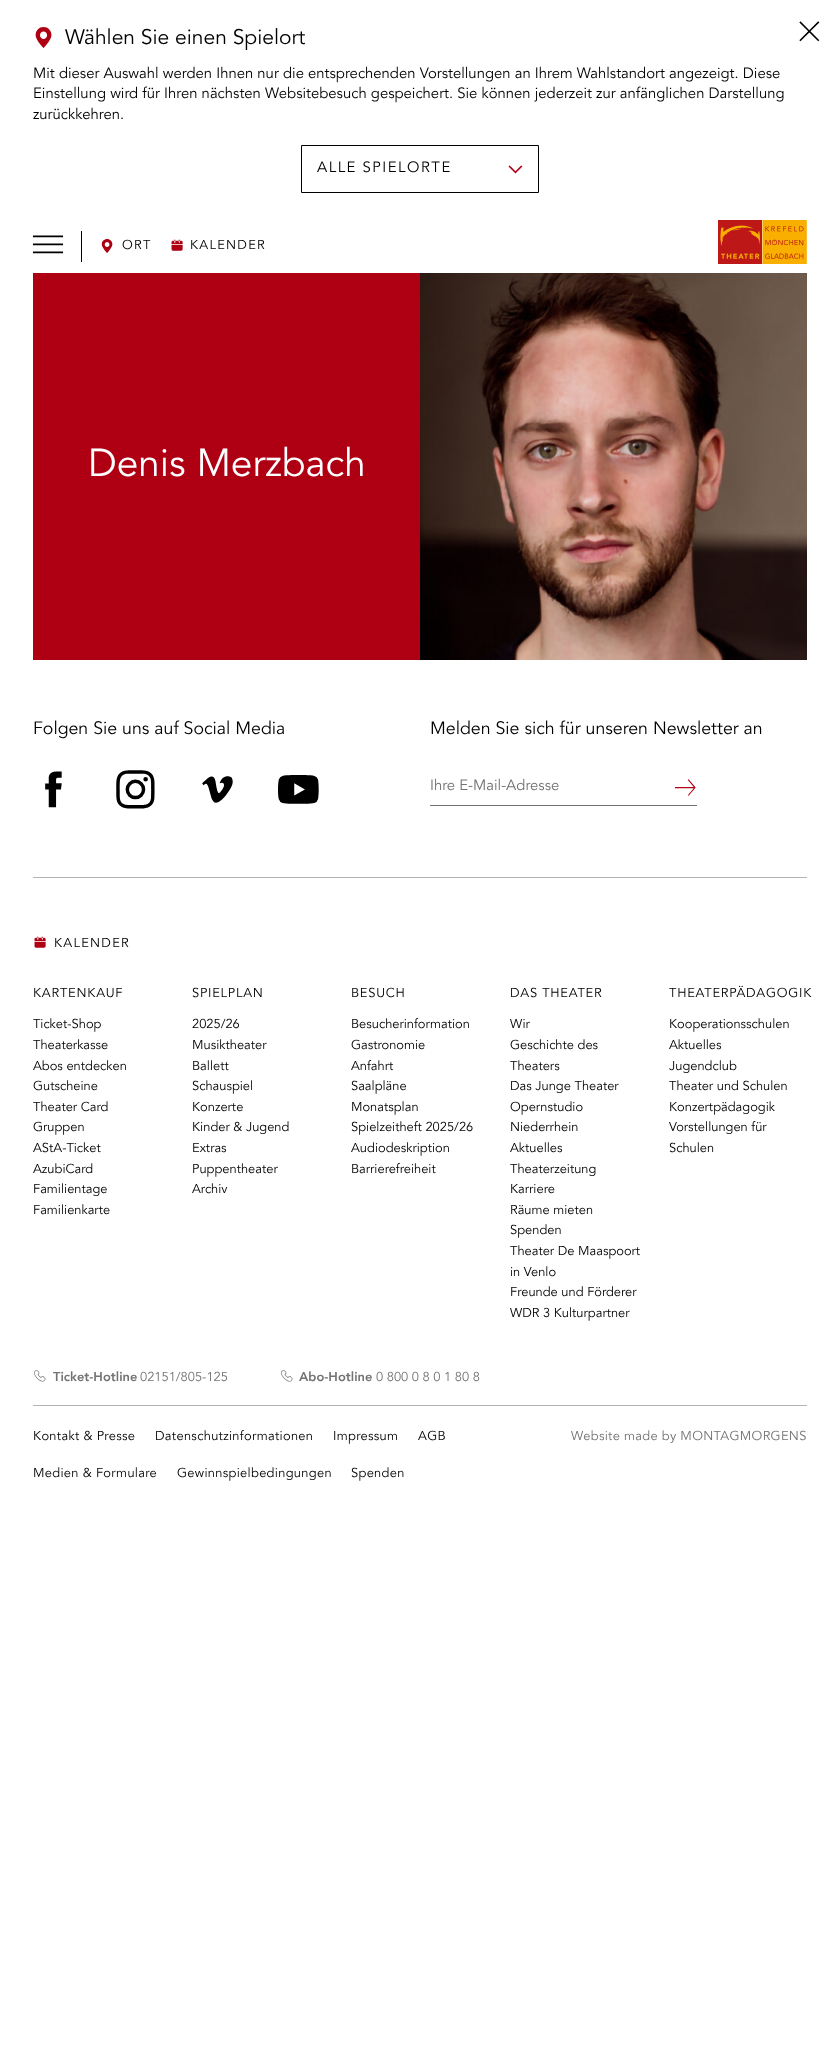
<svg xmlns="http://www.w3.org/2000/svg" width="840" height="2061">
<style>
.a{font:21px Avenir;fill:#000}
.b{font:14.88px Avenir;fill:#000}
.c{font:14.88px Avenir;letter-spacing:1.5px;fill:#000}
.d{font:12.9px Avenir;letter-spacing:1.25px;fill:#000}
.e{font:38.75px Avenir;fill:#fff}
.f{font:17.75px Avenir;fill:#000}
.g{font:14.88px Avenir;fill:#737373}
.h{font:12.9px Avenir;letter-spacing:0.75px;fill:#000}
.i{font:12.9px Avenir;fill:#000}
.j{font:900 12.9px Avenir;fill:#737373}
.k{font:12.9px Avenir;fill:#737373}
.l{font:12.9px Avenir;letter-spacing:0.3px;fill:#000}
.m{font:12.9px Avenir;letter-spacing:0.3px;fill:#737373}
</style>
<rect width="100%" height="100%" fill="#fff"/>
<image href="1.png" x="35" y="27" width="17" height="21"/>
<image href="2.png" x="799" y="21" width="21" height="21"/>
<image href="3.png" x="508" y="165" width="15" height="9"/>
<path fill="none" stroke="#000" d="M301.5 145.5h237v47H301.5z"/>
<image href="4.png" x="33" y="235" width="30" height="19"/>
<path fill="#000" d="M81 231h1v31H81z"/>
<image href="5.png" x="101" y="239" width="12" height="14"/>
<image href="6.png" x="171" y="239" width="12" height="12"/>
<image href="7.png" x="718" y="220" width="89" height="44"/>
<path fill="#af0013" d="M33 273h387v387H33z"/>
<image href="8.png" x="420" y="273" width="387" height="387"/>
<image href="9.png" x="45" y="771" width="17" height="37"/>
<image href="10.png" x="116" y="770" width="39" height="39"/>
<image href="11.png" x="202" y="776" width="31" height="27"/>
<image href="12.png" x="278" y="775" width="41" height="29"/>
<path fill="#737373" d="M430 805h267v1H430z"/>
<image href="13.png" x="675" y="779" width="21" height="17"/>
<path fill="#b3b3b3" d="M33 877h774v1H33z"/>
<image href="6.png" x="34" y="936" width="12" height="12"/>
<image href="14.png" x="34" y="1370" width="12" height="12"/>
<image href="14.png" x="281" y="1370" width="12" height="12"/>
<path fill="#b3b3b3" d="M33 1405h774v1H33z"/>
<text class="a" x="65" y="44">Wählen Sie einen Spielort</text>
<text class="b" x="33" y="78">Mit dieser Auswahl werden Ihnen nur die entsprechenden Vorstellungen an Ihrem Wahlstandort angezeigt. Diese</text>
<text class="b" x="33" y="98">Einstellung wird für Ihren nächsten Websitebesuch gespeichert. Sie können jederzeit zur anfänglichen Darstellung</text>
<text class="b" x="33" y="119">zurückkehren.</text>
<text class="c" x="317" y="172">ALLE SPIELORTE</text>
<text class="d" x="122" y="249">ORT</text>
<text class="d" x="190" y="249">KALENDER</text>
<text class="e" x="88" y="476">Denis Merzbach</text>
<text class="f" x="33" y="734">Folgen Sie uns auf Social Media</text>
<text class="f" x="430" y="734">Melden Sie sich für unseren Newsletter an</text>
<text class="g" x="430" y="790">Ihre E-Mail-Adresse</text>
<text class="d" x="54" y="947">KALENDER</text>
<text class="h" x="33" y="997">KARTENKAUF</text>
<text class="i" x="33" y="1028">Ticket-Shop</text>
<text class="i" x="33" y="1049">Theaterkasse</text>
<text class="i" x="33" y="1070">Abos entdecken</text>
<text class="i" x="33" y="1090">Gutscheine</text>
<text class="i" x="33" y="1111">Theater Card</text>
<text class="i" x="33" y="1131">Gruppen</text>
<text class="i" x="33" y="1152">AStA-Ticket</text>
<text class="i" x="33" y="1173">AzubiCard</text>
<text class="i" x="33" y="1193">Familientage</text>
<text class="i" x="33" y="1214">Familienkarte</text>
<text class="h" x="192" y="997">SPIELPLAN</text>
<text class="i" x="192" y="1028">2025/26</text>
<text class="i" x="192" y="1049">Musiktheater</text>
<text class="i" x="192" y="1070">Ballett</text>
<text class="i" x="192" y="1090">Schauspiel</text>
<text class="i" x="192" y="1111">Konzerte</text>
<text class="i" x="192" y="1131">Kinder &amp; Jugend</text>
<text class="i" x="192" y="1152">Extras</text>
<text class="i" x="192" y="1173">Puppentheater</text>
<text class="i" x="192" y="1193">Archiv</text>
<text class="h" x="351" y="997">BESUCH</text>
<text class="i" x="351" y="1028">Besucherinformation</text>
<text class="i" x="351" y="1049">Gastronomie</text>
<text class="i" x="351" y="1070">Anfahrt</text>
<text class="i" x="351" y="1090">Saalpläne</text>
<text class="i" x="351" y="1111">Monatsplan</text>
<text class="i" x="351" y="1131">Spielzeitheft 2025/26</text>
<text class="i" x="351" y="1152">Audiodeskription</text>
<text class="i" x="351" y="1173">Barrierefreiheit</text>
<text class="h" x="510" y="997">DAS THEATER</text>
<text class="i" x="510" y="1028">Wir</text>
<text class="i" x="510" y="1049">Geschichte des</text>
<text class="i" x="510" y="1070">Theaters</text>
<text class="i" x="510" y="1090">Das Junge Theater</text>
<text class="i" x="510" y="1111">Opernstudio</text>
<text class="i" x="510" y="1131">Niederrhein</text>
<text class="i" x="510" y="1152">Aktuelles</text>
<text class="i" x="510" y="1173">Theaterzeitung</text>
<text class="i" x="510" y="1193">Karriere</text>
<text class="i" x="510" y="1214">Räume mieten</text>
<text class="i" x="510" y="1234">Spenden</text>
<text class="i" x="510" y="1255">Theater De Maaspoort</text>
<text class="i" x="510" y="1276">in Venlo</text>
<text class="i" x="510" y="1296">Freunde und Förderer</text>
<text class="i" x="510" y="1317">WDR 3 Kulturpartner</text>
<text class="h" x="669" y="997">THEATERPÄDAGOGIK</text>
<text class="i" x="669" y="1028">Kooperationsschulen</text>
<text class="i" x="669" y="1049">Aktuelles</text>
<text class="i" x="669" y="1070">Jugendclub</text>
<text class="i" x="669" y="1090">Theater und Schulen</text>
<text class="i" x="669" y="1111">Konzertpädagogik</text>
<text class="i" x="669" y="1131">Vorstellungen für</text>
<text class="i" x="669" y="1152">Schulen</text>
<text class="j" x="53" y="1381">Ticket-Hotline</text>
<text class="k" x="140" y="1381">02151/805-125</text>
<text class="j" x="299" y="1381">Abo-Hotline</text>
<text class="k" x="376" y="1381">0 800 0 8 0 1 80 8</text>
<text class="l" x="33" y="1440">Kontakt &amp; Presse</text>
<text class="l" x="155" y="1440">Datenschutzinformationen</text>
<text class="l" x="333" y="1440">Impressum</text>
<text class="l" x="418" y="1440">AGB</text>
<text class="l" x="33" y="1477">Medien &amp; Formulare</text>
<text class="l" x="177" y="1477">Gewinnspielbedingungen</text>
<text class="l" x="351" y="1477">Spenden</text>
<text class="m" x="571" y="1440">Website made by MONTAGMORGENS</text>
</svg>
